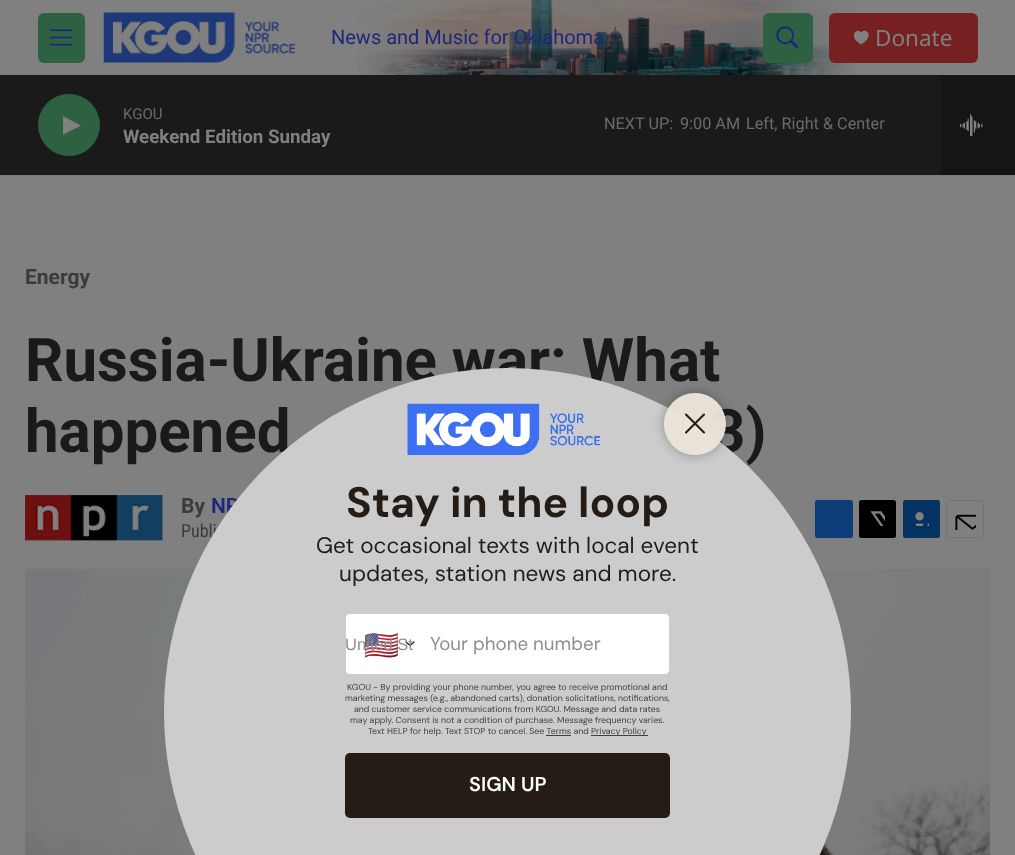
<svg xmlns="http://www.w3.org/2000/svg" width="1015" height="855">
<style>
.a{font:20px Roboto;fill:#1e2879}
.b{font:22.5px Noto Sans;fill:#808080}
.c{font:15px Roboto;fill:#6b6b6b}
.d{font:bold 18.75px 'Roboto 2';fill:#808080}
.e{font:16.25px Roboto;fill:#6b6b6b}
.f{font:bold 21px Roboto;fill:#3b3b3b}
.g{font:bold 60px Roboto;fill:#1a1a1a}
.h{font:600 21px Roboto;fill:#1e2879}
.i{font:18px Roboto Condensed;fill:#3b3b3b}
.j{font:bold 42.5px DM Sans;fill:#251d15}
.k{font:22.5px DM Sans;fill:#251d15}
.l{font:28px Noto Color Emoji;fill:#251d15}
.m{font:16.5px Liberation Sans;fill:#928e8a}
.n{font:18.75px DM Sans;fill:#928e8a}
.o{font:8.75px DM Sans;fill:#46403a}
.p{font:600 20px DM Sans;fill:#fff}
</style>
<defs>
<clipPath id="clip1"><path d="M854 30h15v15H854z"/></clipPath>
<clipPath id="clip2"><path d="M63 114h18v24H63z"/></clipPath>
<clipPath id="clip3"><path d="M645 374h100v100h-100zm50 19c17 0 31 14 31 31c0 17-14 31-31 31c-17 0-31-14-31-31c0-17 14-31 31-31z" clip-rule="evenodd"/></clipPath>
</defs>
<rect width="100%" height="100%" fill="#808080"/>
<path fill="#7b7b7b" d="M0 175h1015v1H0z"/>
<image href="1.png" x="356" y="0" width="500" height="75"/>
<rect fill="#2d6142" x="38" y="13" width="47" height="50" rx="6"/>
<image href="2.png" x="50" y="29" width="23" height="17"/>
<image href="3.png" x="103" y="12" width="193" height="51"/>
<rect fill="#2d6142" x="763" y="13" width="50" height="50" rx="6"/>
<image href="4.png" x="776" y="26" width="23" height="23"/>
<rect fill="#762022" x="829" y="13" width="149" height="50" rx="6"/>
<g clip-path="url(#clip1)">
<path fill="#808080" d="M861 33c-2-6.5-15.5 2 0 11.5c16-9.5 2.5-18 0-11.5z"/>
</g>
<path fill="#1a1a1a" d="M0 75h941v100H0z"/>
<circle fill="#2d6142" cx="69" cy="125" r="31"/>
<g clip-path="url(#clip2)">
<path fill="#808080" d="M62.5 116l18.5 9.5l-18.5 9.5z"/>
</g>
<path fill="#151515" d="M941 75h74v100H941z"/>
<image href="5.png" x="960" y="114" width="23" height="22"/>
<image href="6.png" x="25" y="495" width="138" height="46"/>
<rect fill="#0c3c79" x="815" y="500" width="38" height="38" rx="2.5"/>
<rect fill="#000" x="859" y="500" width="37" height="38" rx="2.5"/>
<image href="7.png" x="870" y="511" width="15" height="15"/>
<rect fill="#053361" x="903" y="500" width="37" height="38" rx="2.5"/>
<image href="8.png" x="915" y="512" width="14" height="14"/>
<rect fill="none" stroke="#737373" x="946.5" y="500.5" width="37" height="37" rx="2"/>
<image href="9.png" x="955" y="514" width="21" height="16"/>
<image href="10.png" x="25" y="568" width="965" height="287"/>
<text class="a" x="331" y="44">News and Music for Oklahoma</text>
<text class="b" x="875" y="46">Donate</text>
<text class="c" x="123" y="119">KGOU</text>
<text class="d" x="123" y="143">Weekend Edition Sunday</text>
<text class="e" x="604" y="129">NEXT UP:</text>
<text class="e" x="680" y="129">9:00 AM</text>
<text class="e" x="746" y="129">Left, Right &amp; Center</text>
<text class="f" x="25" y="284">Energy</text>
<text class="g" x="25" y="381">Russia-Ukraine war: What</text>
<text class="g" x="25" y="452">happened</text>
<text class="g" x="711" y="452">3)</text>
<text class="f" x="181" y="513">By</text>
<text class="h" x="211" y="513">NP</text>
<text class="i" x="181" y="537">Publi</text>
<circle fill="#ccc" cx="507.5" cy="711.5" r="343.5"/>
<g clip-path="url(#clip3)">
<rect fill="#0000004d" filter="blur(6px)" x="664" y="393" width="62" height="62" rx="31"/>
</g>
<circle fill="#eae3d8f7" cx="695" cy="424" r="31"/>
<path fill="none" stroke="#251d15" stroke-width="2.1" stroke-linecap="round" d="M686 414.5l18 18m0-18l-18 18"/>
<image href="11.png" x="407" y="403" width="194" height="52"/>
<text class="j" x="346" y="517">Stay in the loop</text>
<text class="k" x="316" y="553">Get occasional texts with local event</text>
<text class="k" x="339" y="581">updates, station news and more.</text>
<rect fill="#fff" stroke="#ccc" x="345.5" y="613.5" width="324" height="61" rx="4.5"/>
<path fill="none" stroke="#251d15" stroke-width="1.2" stroke-linecap="round" stroke-linejoin="round" d="M406 642l4 3.5l4-3.5"/>
<text class="l" x="364" y="655">🇺🇸</text>
<text class="m" x="345" y="650">United St</text>
<text class="n" x="430" y="650">Your phone number</text>
<text class="o" x="347" y="690">KGOU - By providing your phone number, you agree to receive promotional and</text>
<text class="o" x="345" y="701">marketing messages (e.g., abandoned carts), donation solicitations, notifications,</text>
<text class="o" x="354" y="712">and customer service communications from KGOU. Message and data rates</text>
<text class="o" x="350" y="723">may apply. Consent is not a condition of purchase. Message frequency varies.</text>
<text class="o" x="368" y="734">Text HELP for help. Text STOP to cancel. See Terms and</text>
<path fill="#46403a" d="M591 735h57v1H591z"/>
<text class="o" x="591" y="734">Privacy Policy</text>
<path fill="#46403a" d="M546 735h25v1H546z"/>
<rect fill="#251d15" x="345" y="753" width="325" height="65" rx="5"/>
<text class="p" x="469" y="791">SIGN UP</text>
</svg>
